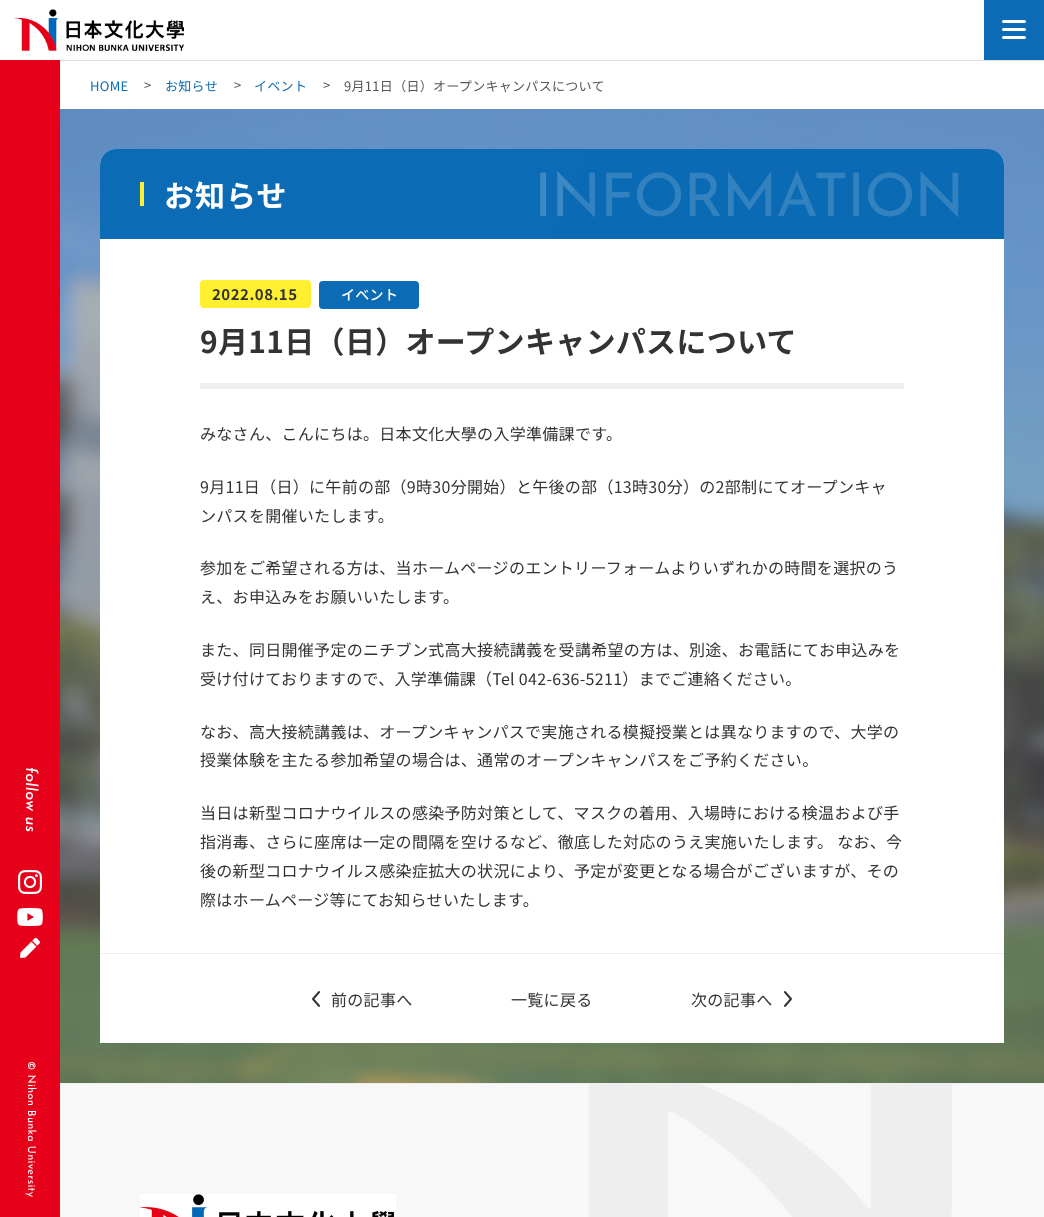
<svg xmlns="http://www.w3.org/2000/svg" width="1044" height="1217">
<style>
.a{font:italic 500 16px Josefin Sans;letter-spacing:0.3px;fill:#fff}
.b{font:11px Josefin Sans;letter-spacing:0.3px;fill:#fff}
.c{font:13px Noto Sans JP;letter-spacing:0.3px;fill:#0c6bb5}
.d{font:13px Noto Sans JP;letter-spacing:0.3px;fill:#555}
.e{font:bold 30px Noto Sans JP;letter-spacing:1px;fill:#fff}
.f{font:60px Josefin Sans;letter-spacing:-1.25px;fill:#3d89c4}
.g{font:bold 15px Noto Sans JP;letter-spacing:0.5px;fill:#333}
.h{font:500 14px Noto Sans JP;letter-spacing:0.3px;fill:#fff}
.i{font:bold 30px Noto Sans JP;letter-spacing:0.3px;fill:#333}
.j{font:16px Noto Sans JP;letter-spacing:0.3px;fill:#333}
</style>
<defs>
<clipPath id="clip1"><path d="M524 1084h440v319H524z"/></clipPath>
</defs>
<rect width="100%" height="100%" fill="#fff"/>
<image href="1.png" x="14" y="9" width="170" height="42"/>
<path fill="#0c6bb5" d="M984 0h60v60H984z"/>
<rect fill="#fff" x="1002" y="20" width="24" height="3" rx="1.5"/>
<rect fill="#fff" x="1002" y="28" width="24" height="3" rx="1.5"/>
<rect fill="#fff" x="1002" y="36" width="24" height="3" rx="1.5"/>
<path fill="#e60019" d="M0 60h60v1157H0z"/>
<image href="2.png" x="18" y="870" width="24" height="24"/>
<image href="3.png" x="17" y="908" width="26" height="18"/>
<image href="4.png" x="20" y="938" width="20" height="20"/>
<path fill="#e0e0e0" d="M60 60h984v1H60z"/>
<image href="5.png" x="60" y="109" width="984" height="974"/>
<path fill="#fff" d="M116 149h872c9 0 16 7 16 16v878h-904v-878c0-9 7-16 16-16z"/>
<path fill="#0c6bb5" d="M116 149h872c9 0 16 7 16 16v74h-904v-74c0-9 7-16 16-16z"/>
<path fill="#ffef31" d="M140 182h4v24H140z"/>
<rect fill="#ffef31" x="200" y="280" width="111" height="28" rx="4"/>
<rect fill="#0c6bb5" x="319" y="281" width="100" height="28" rx="4"/>
<path fill="#efefef" d="M200 383h704v6H200z"/>
<path fill="#efefef" d="M100 953h904v1H100z"/>
<image href="6.png" x="312" y="991" width="8" height="16"/>
<image href="7.png" x="784" y="991" width="8" height="16"/>
<path fill="#f8f8f8" d="M60 1084h984v133H60z"/>
<path fill="#efefef" d="M60 1083h984v1H60z"/>
<image href="8.png" x="140" y="1194" width="256" height="23"/>
<g clip-path="url(#clip1)">
<path fill="#eee" d="M871 1057h96c-7 5-12 13-14 21c-2 13-1 34-1 44l-1 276h-79c-25-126-92-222-201-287l-3 1v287h-79v-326l-74-16c135-12 269 46 354 152l2-1z"/>
</g>
<text class="a" x="26" y="767" transform="rotate(90 26 767)">follow us</text>
<text class="b" x="28" y="1061" transform="rotate(90 28 1061)">© Nihon Bunka University</text>
<text class="c" x="90" y="91">HOME</text>
<text class="d" x="144" y="90">&gt;</text>
<text class="c" x="165" y="91">お知らせ</text>
<text class="d" x="234" y="90">&gt;</text>
<text class="c" x="254" y="91">イベント</text>
<text class="d" x="323" y="90">&gt;</text>
<text class="d" x="344" y="91">9月11日（日）オープンキャンパスについて</text>
<text class="e" x="164" y="207">お知らせ</text>
<text class="f" x="534" y="216">INFORMATION</text>
<path fill="#0c6bb533" d="M591 149l-38 90h451v-74c0-9-7-16-16-16z"/>
<text class="g" x="212" y="300">2022.08.15</text>
<text class="h" x="341" y="300">イベント</text>
<text class="i" x="200" y="353">9月11日（日）オープンキャンパスについて</text>
<text class="j" x="200" y="440">みなさん、こんにちは。日本文化大學の入学準備課です。</text>
<text class="j" x="200" y="493">9月11日（日）に午前の部（9時30分開始）と午後の部（13時30分）の2部制にてオープンキャ</text>
<text class="j" x="200" y="522">ンパスを開催いたします。</text>
<text class="j" x="200" y="574">参加をご希望される方は、当ホームページのエントリーフォームよりいずれかの時間を選択のう</text>
<text class="j" x="200" y="603">え、お申込みをお願いいたします。</text>
<text class="j" x="200" y="656">また、同日開催予定のニチブン式高大接続講義を受講希望の方は、別途、お電話にてお申込みを</text>
<text class="j" x="200" y="685">受け付けておりますので、入学準備課（Tel 042-636-5211）までご連絡ください。</text>
<text class="j" x="200" y="738">なお、高大接続講義は、オープンキャンパスで実施される模擬授業とは異なりますので、大学の</text>
<text class="j" x="200" y="766">授業体験を主たる参加希望の場合は、通常のオープンキャンパスをご予約ください。</text>
<text class="j" x="200" y="819">当日は新型コロナウイルスの感染予防対策として、マスクの着用、入場時における検温および手</text>
<text class="j" x="200" y="848">指消毒、さらに座席は一定の間隔を空けるなど、徹底した対応のうえ実施いたします。 なお、今</text>
<text class="j" x="200" y="877">後の新型コロナウイルス感染症拡大の状況により、予定が変更となる場合がございますが、その</text>
<text class="j" x="200" y="906">際はホームページ等にてお知らせいたします。</text>
<text class="j" x="331" y="1006">前の記事へ</text>
<text class="j" x="511" y="1006">一覧に戻る</text>
<text class="j" x="691" y="1006">次の記事へ</text>
</svg>
